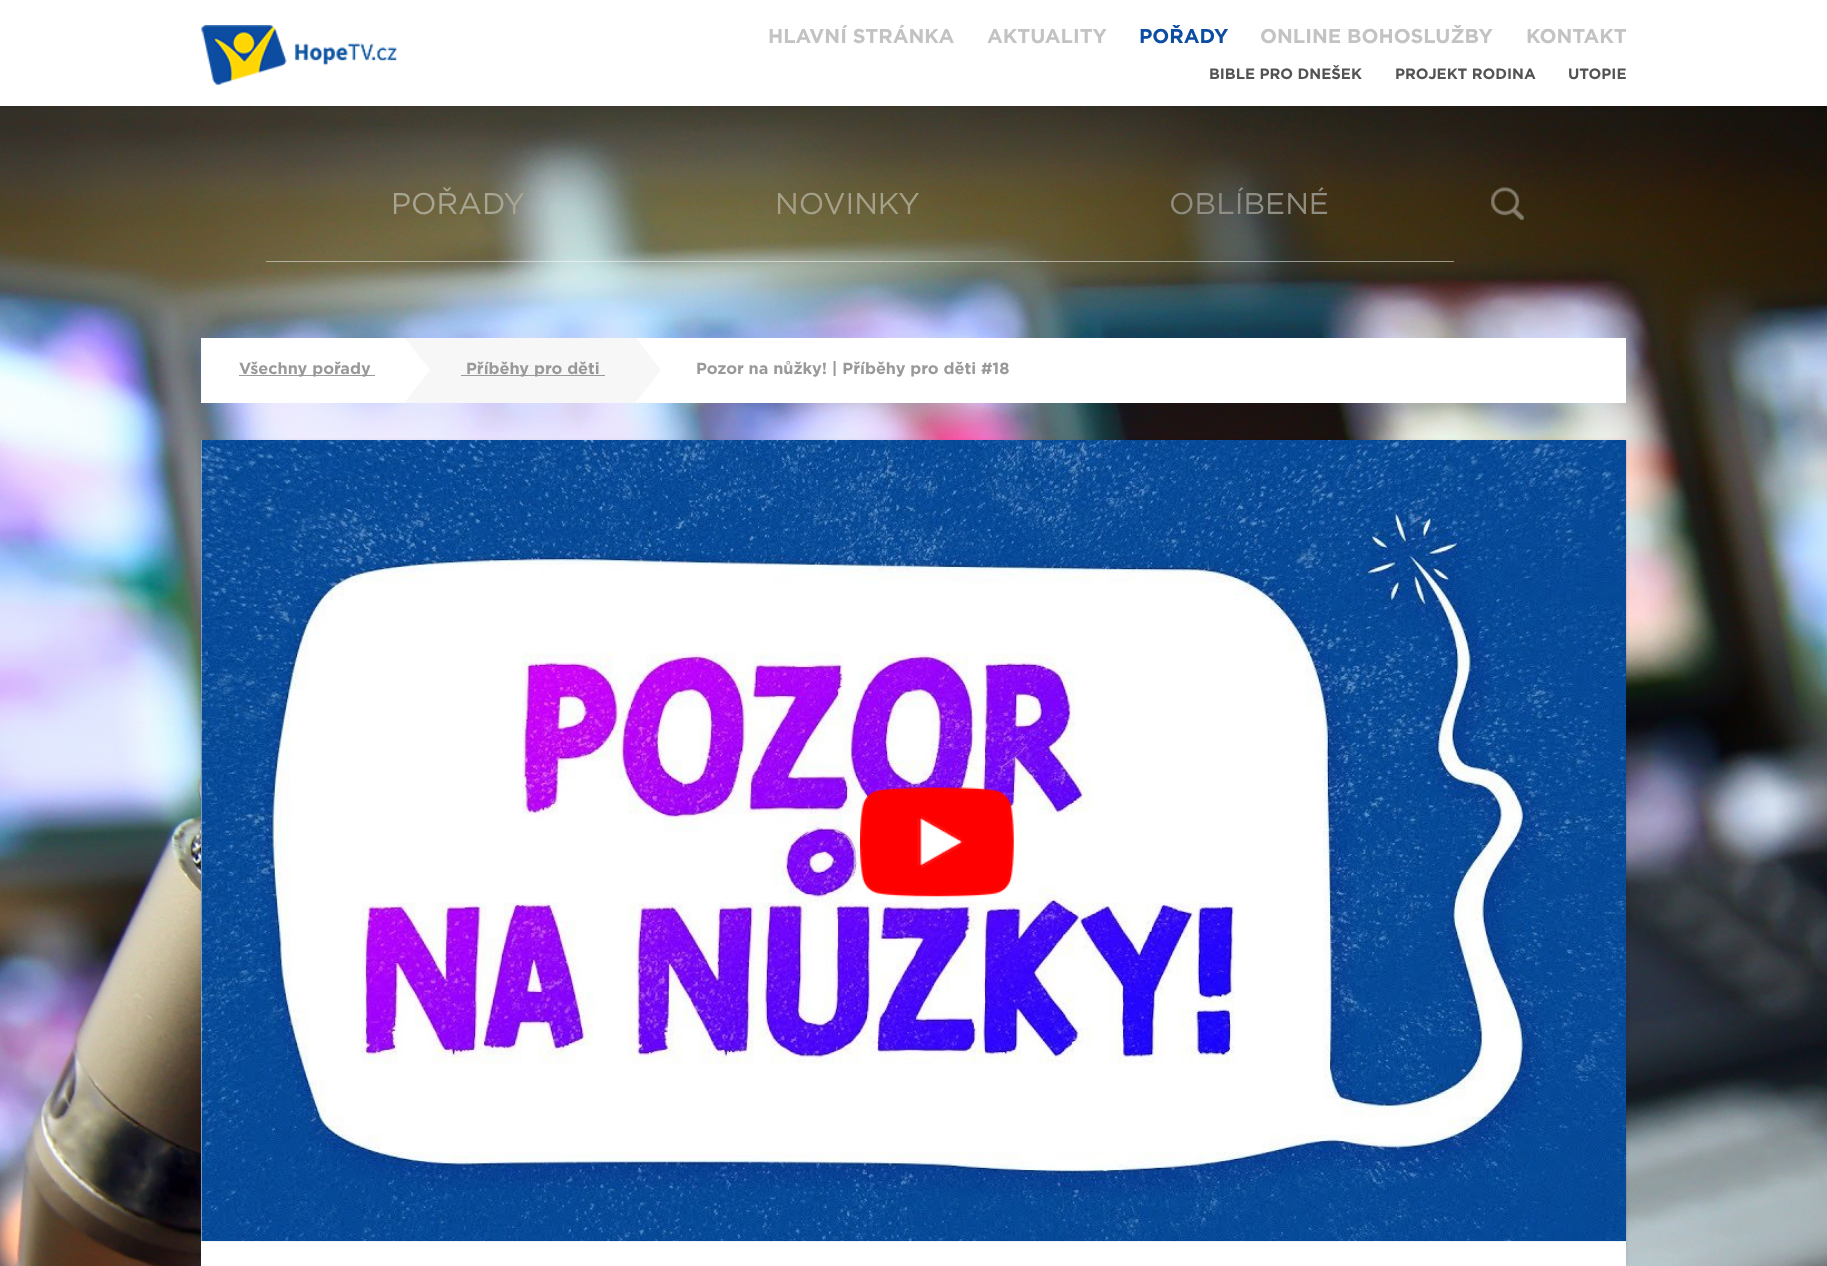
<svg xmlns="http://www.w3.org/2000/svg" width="1827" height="1266">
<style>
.a{font:bold 20px Gotham;fill:#c3c3c3}
.b{font:bold 20px Gotham;fill:#0c4da2}
.c{font:bold 15px Gotham;fill:#535353}
.d{font:30px Gotham;fill:#a8a593}
.e{font:30px Gotham;fill:#a5a089}
.f{font:30px Gotham;fill:#908d83}
.g{font:bold 16.25px Gotham;fill:#999}
</style>
<rect width="100%" height="100%" fill="#fff"/>
<image href="2.png" x="0" y="106" width="1827" height="1160"/>
<path fill="#0000001a" filter="blur(2px)" d="M0 1h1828v107H0z"/>
<path fill="#fff" d="M0 0h1827v106H0z"/>
<image href="1.png" x="201" y="25" width="196" height="60"/>
<path fill="#ffffff66" d="M266 261h384v1H266z"/>
<path fill="#ffffff29" d="M266 261h384v1H266z"/>
<path fill="#ffffff66" d="M650 261h395v1H650z"/>
<path fill="#ffffff66" d="M1044 261h410v1H1044z"/>
<path fill="#ffffff29" d="M650 261h395v1H650z"/>
<path fill="#ffffff29" d="M1044 261h410v1H1044z"/>
<image href="3.png" x="1491" y="187" width="33" height="33"/>
<path fill="#fff" d="M201 338h1425v65H201z"/>
<path fill="#999" d="M239 375h136v1H239z"/>
<path fill="#f7f7f7" d="M405 338h231v65H405z"/>
<path fill="#fff" d="M405 402v-64l25 32z"/>
<path fill="#999" d="M461 375h144v1H461z"/>
<path fill="#f7f7f7" d="M636 402v-64l25 32z"/>
<path fill="#0000001a" filter="blur(2px)" d="M201 441h1425v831H201z"/>
<path fill="#fff" d="M201 440h1425v826H201z"/>
<image href="4.png" x="201" y="440" width="1426" height="802"/>
<image href="5.png" x="860" y="787" width="154" height="110"/>
<text class="a" x="768" y="43">HLAVNÍ STRÁNKA</text>
<text class="a" x="987" y="43">AKTUALITY</text>
<text class="b" x="1139" y="43">POŘADY</text>
<text class="a" x="1260" y="43">ONLINE BOHOSLUŽBY</text>
<text class="a" x="1526" y="43">KONTAKT</text>
<text class="c" x="1209" y="79">BIBLE PRO DNEŠEK</text>
<text class="c" x="1395" y="79">PROJEKT RODINA</text>
<text class="c" x="1568" y="79">UTOPIE</text>
<text class="d" x="391" y="214">POŘADY</text>
<text class="e" x="775" y="214">NOVINKY</text>
<text class="f" x="1169" y="214">OBLÍBENÉ</text>
<text class="g" x="239" y="374">Všechny pořady</text>
<text class="g" x="466" y="374">Příběhy pro děti</text>
<text class="g" x="696" y="374">Pozor na nůžky! | Příběhy pro děti #18</text>
</svg>
